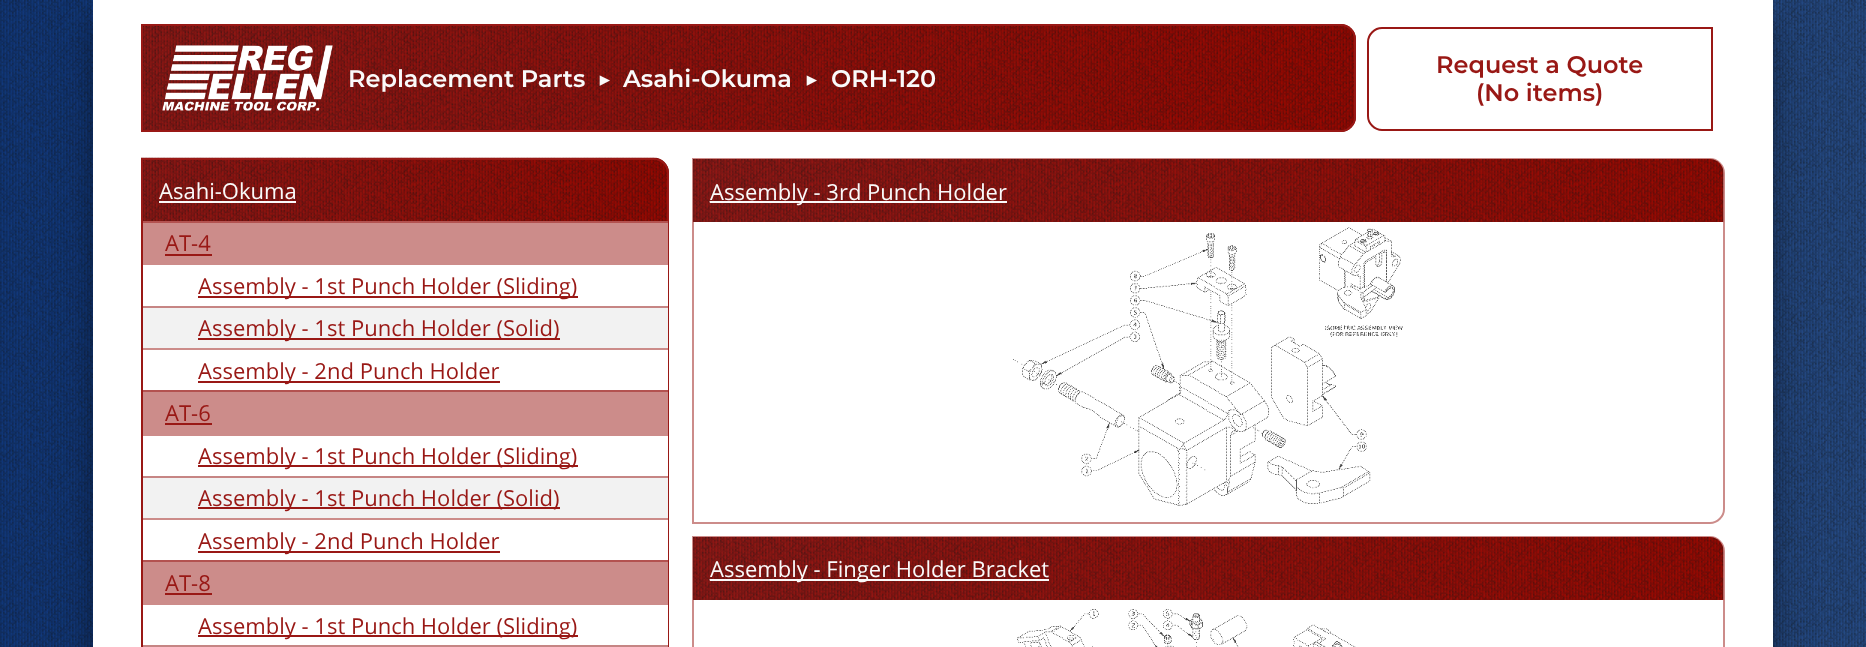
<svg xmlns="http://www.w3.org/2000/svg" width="1866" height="647">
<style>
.a{font:600 24px Montserrat;fill:#fafafa}
.b{font:600 24px Montserrat;fill:#991815}
.c{font:22px Open Sans;fill:#fafafa}
.d{font:22px Open Sans;fill:#991815}
</style>
<rect width="100%" height="100%" fill="#fff"/>
<image href="1.png" x="0" y="0" width="1866" height="647"/>
<rect fill="#00000038" filter="blur(7.5px)" x="93" y="15" width="1680" height="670" rx="15"/>
<rect fill="#00000040" filter="blur(21px)" x="93" y="21" width="1680" height="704" rx="15"/>
<path fill="#fff" d="M93 0h1680v647H93z"/>
<image href="2.png" x="143" y="24" width="1213" height="108"/>
<path fill="none" stroke="#991815" stroke-width="2" d="M142 25h1199c7.5 0 14 6.5 14 14v78c0 7.5-6.5 14-14 14h-1199z"/>
<image href="3.png" x="162" y="45" width="171" height="66"/>
<path fill="none" stroke="#991815" stroke-width="2" d="M1382 28h330v102h-330c-7.5 0-14-6.5-14-14v-74c0-7.5 6.5-14 14-14z"/>
<image href="4.png" x="141" y="157" width="528" height="64"/>
<path fill="none" stroke="#991815" stroke-width="2" d="M142 159h512c7.5 0 14 6.5 14 14v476c0 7.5-6.5 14-14 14h-512z"/>
<path fill="#fafafa" d="M159 201h137v2H159z"/>
<path fill="#fff" d="M667 265h1v380H667z"/>
<path fill="#cc8c8a" d="M143 223h525v42H143z"/>
<path fill="#b35250" d="M143 221h525v2H143z"/>
<path fill="#991815" d="M165 254h47v2H165z"/>
<path fill="#991815" d="M198 296h380v2H198z"/>
<path fill="#f2f2f2" d="M143 308h525v40H143z"/>
<path fill="#c68584" d="M143 306h525v2H143z"/>
<path fill="#991815" d="M198 338h362v2H198z"/>
<path fill="#cc8c8a" d="M143 348h525v2H143z"/>
<path fill="#991815" d="M198 381h302v2H198z"/>
<path fill="#cc8c8a" d="M143 392h525v44H143z"/>
<path fill="#b35250" d="M143 390h525v2H143z"/>
<path fill="#991815" d="M165 423h47v2H165z"/>
<path fill="#991815" d="M198 465h380v2H198z"/>
<path fill="#f2f2f2" d="M143 478h525v40H143z"/>
<path fill="#c68584" d="M143 476h525v2H143z"/>
<path fill="#991815" d="M198 507h362v2H198z"/>
<path fill="#cc8c8a" d="M143 518h525v2H143z"/>
<path fill="#991815" d="M198 551h302v2H198z"/>
<path fill="#cc8c8a" d="M143 562h525v43H143z"/>
<path fill="#b35250" d="M143 560h525v2H143z"/>
<path fill="#991815" d="M165 593h47v2H165z"/>
<path fill="#991815" d="M198 635h380v2H198z"/>
<path fill="#c68584" d="M143 645h525v2H143z"/>
<path fill="none" stroke="#cc8c8a" stroke-width="2" d="M693 159h1017c7.5 0 14 6.5 14 14v336c0 7.5-6.5 14-14 14h-1017z"/>
<image href="5.png" x="693" y="159" width="1031" height="63"/>
<path fill="#fafafa" d="M710 201h297v2H710z"/>
<image href="6.png" x="1013" y="227" width="390" height="279"/>
<path fill="none" stroke="#cc8c8a" stroke-width="2" d="M693 537h1017c7.5 0 14 6.5 14 14v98c0 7.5-6.5 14-14 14h-1017z"/>
<image href="7.png" x="693" y="537" width="1031" height="63"/>
<path fill="#fafafa" d="M710 579h339v2H710z"/>
<image href="8.png" x="1017" y="609" width="339" height="38"/>
<text class="a" x="348" y="87">Replacement Parts</text>
<text class="a" x="597" y="87">▶</text>
<text class="a" x="623" y="87">Asahi-Okuma</text>
<text class="a" x="804" y="87">▶</text>
<text class="a" x="831" y="87">ORH-120</text>
<text class="b" x="1436" y="73">Request a Quote</text>
<text class="b" x="1476" y="101">(No items)</text>
<text class="c" x="159" y="199">Asahi-Okuma</text>
<text class="d" x="165" y="251">AT-4</text>
<text class="d" x="198" y="294">Assembly - 1st Punch Holder (Sliding)</text>
<text class="d" x="198" y="336">Assembly - 1st Punch Holder (Solid)</text>
<text class="d" x="198" y="379">Assembly - 2nd Punch Holder</text>
<text class="d" x="165" y="421">AT-6</text>
<text class="d" x="198" y="464">Assembly - 1st Punch Holder (Sliding)</text>
<text class="d" x="198" y="506">Assembly - 1st Punch Holder (Solid)</text>
<text class="d" x="198" y="549">Assembly - 2nd Punch Holder</text>
<text class="d" x="165" y="591">AT-8</text>
<text class="d" x="198" y="634">Assembly - 1st Punch Holder (Sliding)</text>
<text class="c" x="710" y="200">Assembly - 3rd Punch Holder</text>
<text class="c" x="710" y="577">Assembly - Finger Holder Bracket</text>
</svg>
